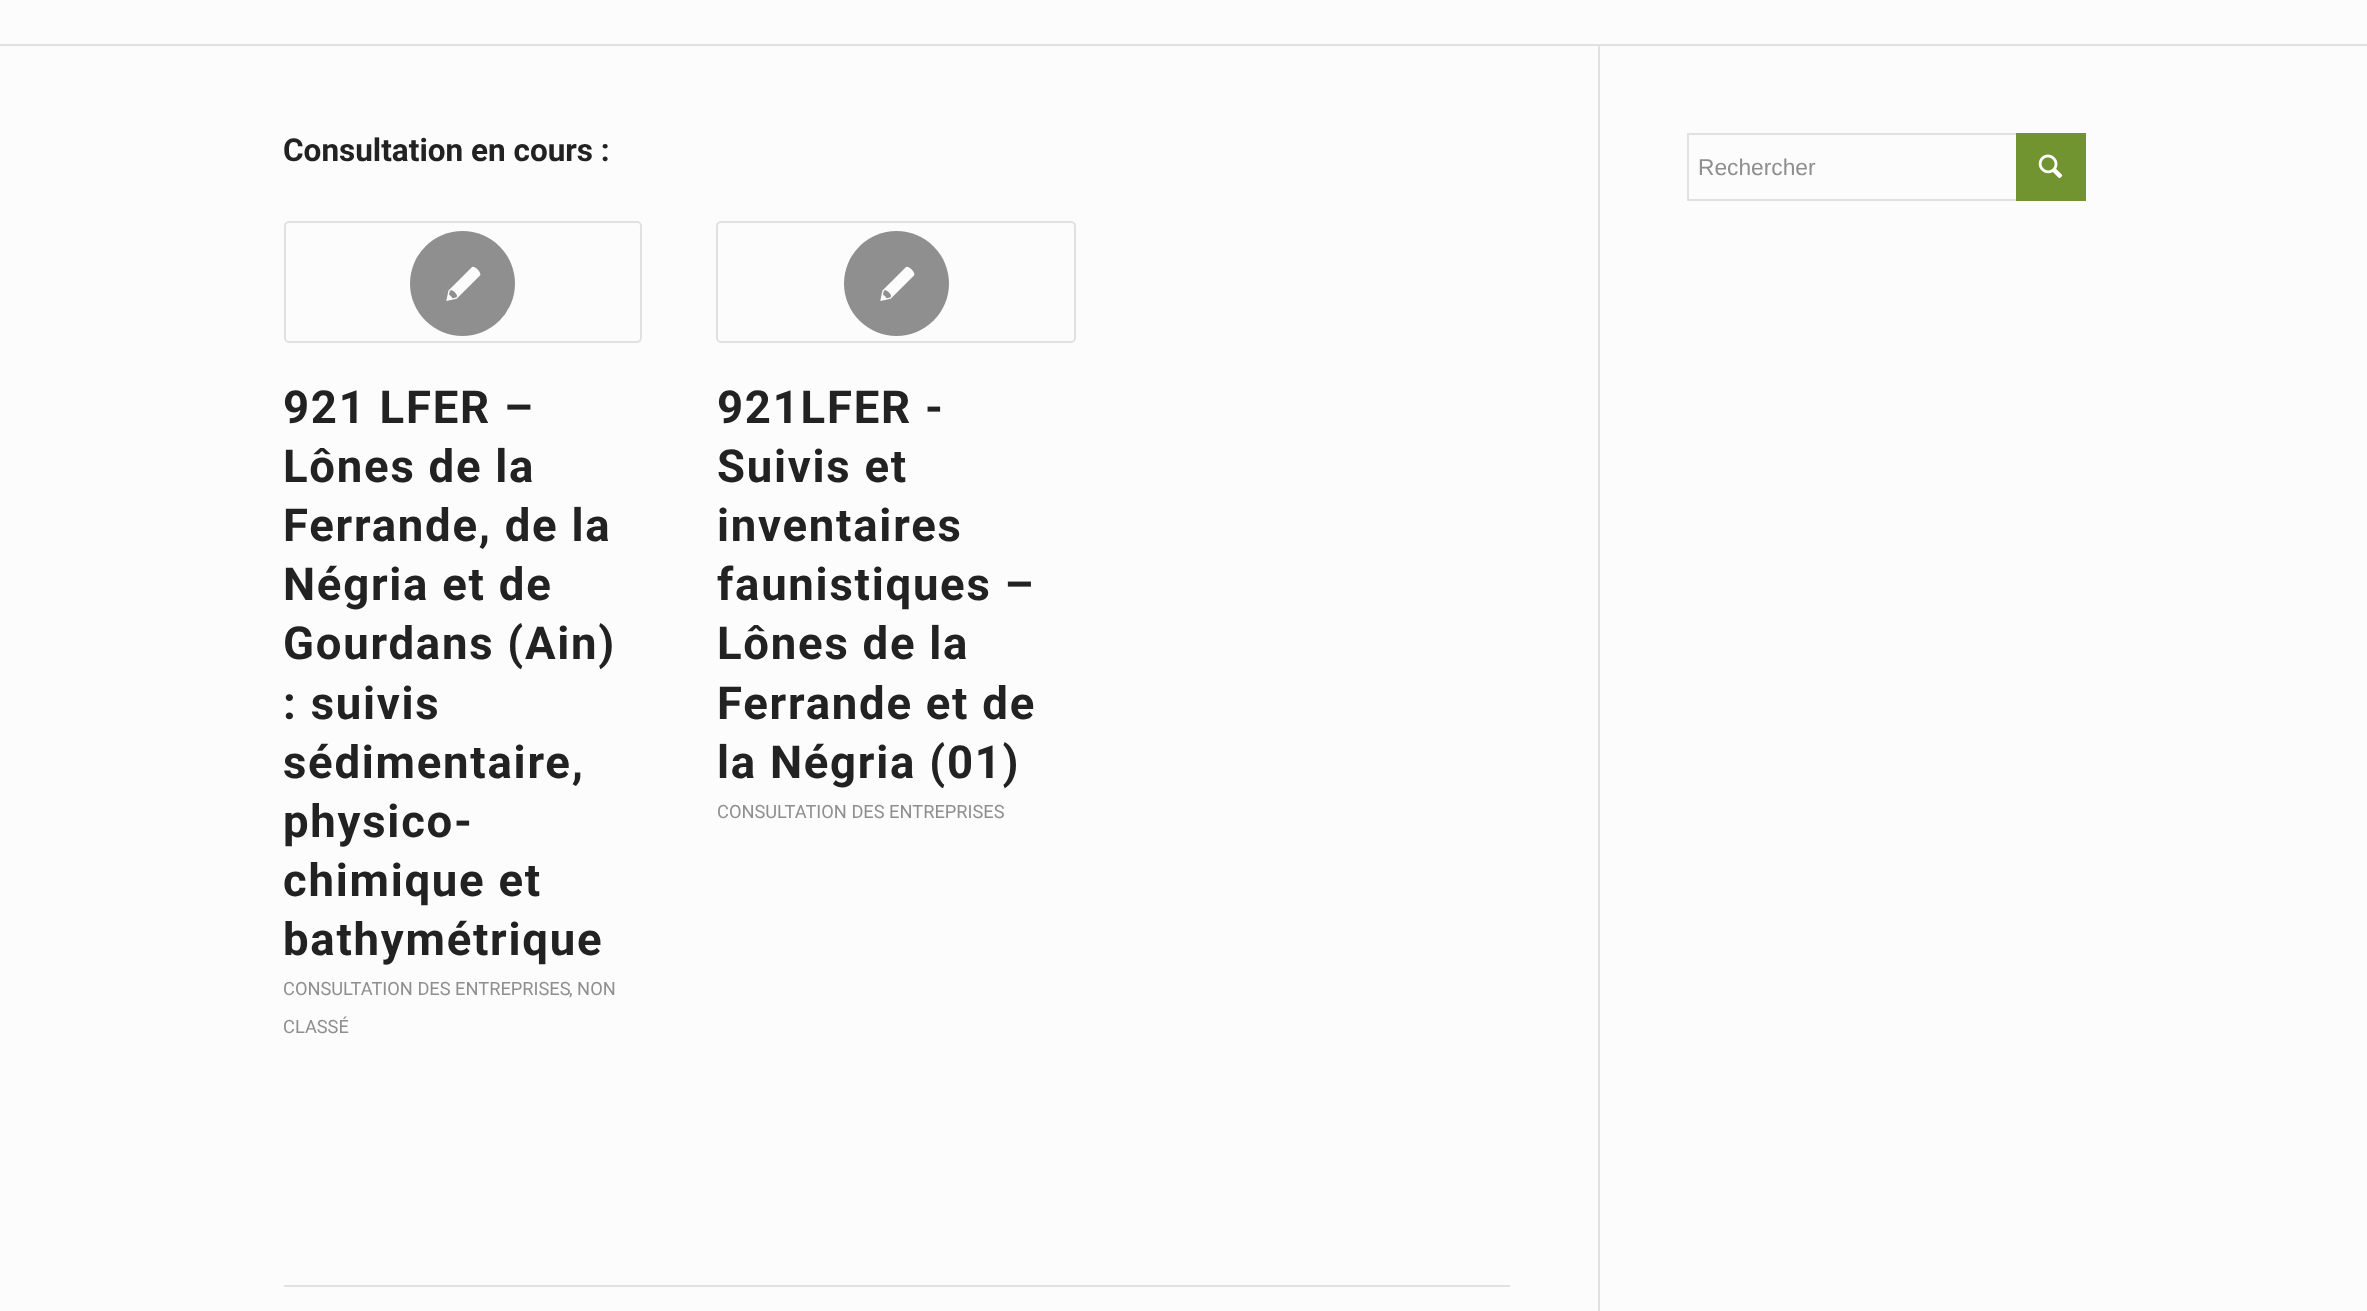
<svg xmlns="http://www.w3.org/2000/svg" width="2367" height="1311">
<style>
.a{font:bold 31.5px Roboto;fill:#222}
.b{font:bold 45.5px Roboto;letter-spacing:1.75px;fill:#222}
.c{font:18.25px Roboto;fill:#8f8f8f}
.d{font:22.75px Liberation Sans;fill:#8f8f8f}
</style>
<defs>
<clipPath id="clip1"><path d="M284 221h1226v938H284z"/></clipPath>
</defs>
<rect width="100%" height="100%" fill="#fcfcfc"/>
<path fill="#e1e1e1" d="M0 44h2367v2H0z"/>
<path fill="#e1e1e1" d="M1598 46h2v1265H1598z"/>
<rect fill="none" stroke="#e1e1e1" stroke-width="2" x="285" y="222" width="356" height="120" rx="4"/>
<circle fill="#8f8f8f" cx="462.5" cy="283.5" r="52.5"/>
<image href="1.png" x="446" y="266" width="35" height="35"/>
<rect fill="none" stroke="#e1e1e1" stroke-width="2" x="717" y="222" width="358" height="120" rx="4"/>
<circle fill="#8f8f8f" cx="896.5" cy="283.5" r="52.5"/>
<image href="1.png" x="880" y="266" width="35" height="35"/>
<path fill="#e1e1e1" d="M284 1285h1226v2H284z"/>
<path fill="none" stroke="#e1e1e1" stroke-width="2" d="M1688 134h397v66H1688z"/>
<path fill="#719430" d="M2016 133h70v68H2016z"/>
<image href="2.png" x="2038" y="154" width="25" height="25"/>
<text class="a" x="283" y="161">Consultation en cours :</text>
<text class="b" x="283" y="423">921 LFER –</text>
<text class="b" x="283" y="482">Lônes de la</text>
<text class="b" x="283" y="541">Ferrande, de la</text>
<text class="b" x="283" y="600">Négria et de</text>
<text class="b" x="283" y="659">Gourdans (Ain)</text>
<text class="b" x="283" y="719">: suivis</text>
<text class="b" x="283" y="778">sédimentaire,</text>
<text class="b" x="283" y="837">physico-</text>
<text class="b" x="283" y="896">chimique et</text>
<text class="b" x="283" y="955">bathymétrique</text>
<g clip-path="url(#clip1)">
<text class="c" x="283" y="995">CONSULTATION DES ENTREPRISES</text>
</g>
<text class="c" x="569" y="995">, NON</text>
<g clip-path="url(#clip1)">
<text class="c" x="283" y="1033">CLASSÉ</text>
</g>
<text class="b" x="717" y="423">921LFER -</text>
<text class="b" x="717" y="482">Suivis et</text>
<text class="b" x="717" y="541">inventaires</text>
<text class="b" x="717" y="600">faunistiques –</text>
<text class="b" x="717" y="659">Lônes de la</text>
<text class="b" x="717" y="719">Ferrande et de</text>
<text class="b" x="717" y="778">la Négria (01)</text>
<text class="c" x="717" y="818">CONSULTATION DES ENTREPRISES</text>
<text class="d" x="1698" y="175">Rechercher</text>
</svg>
